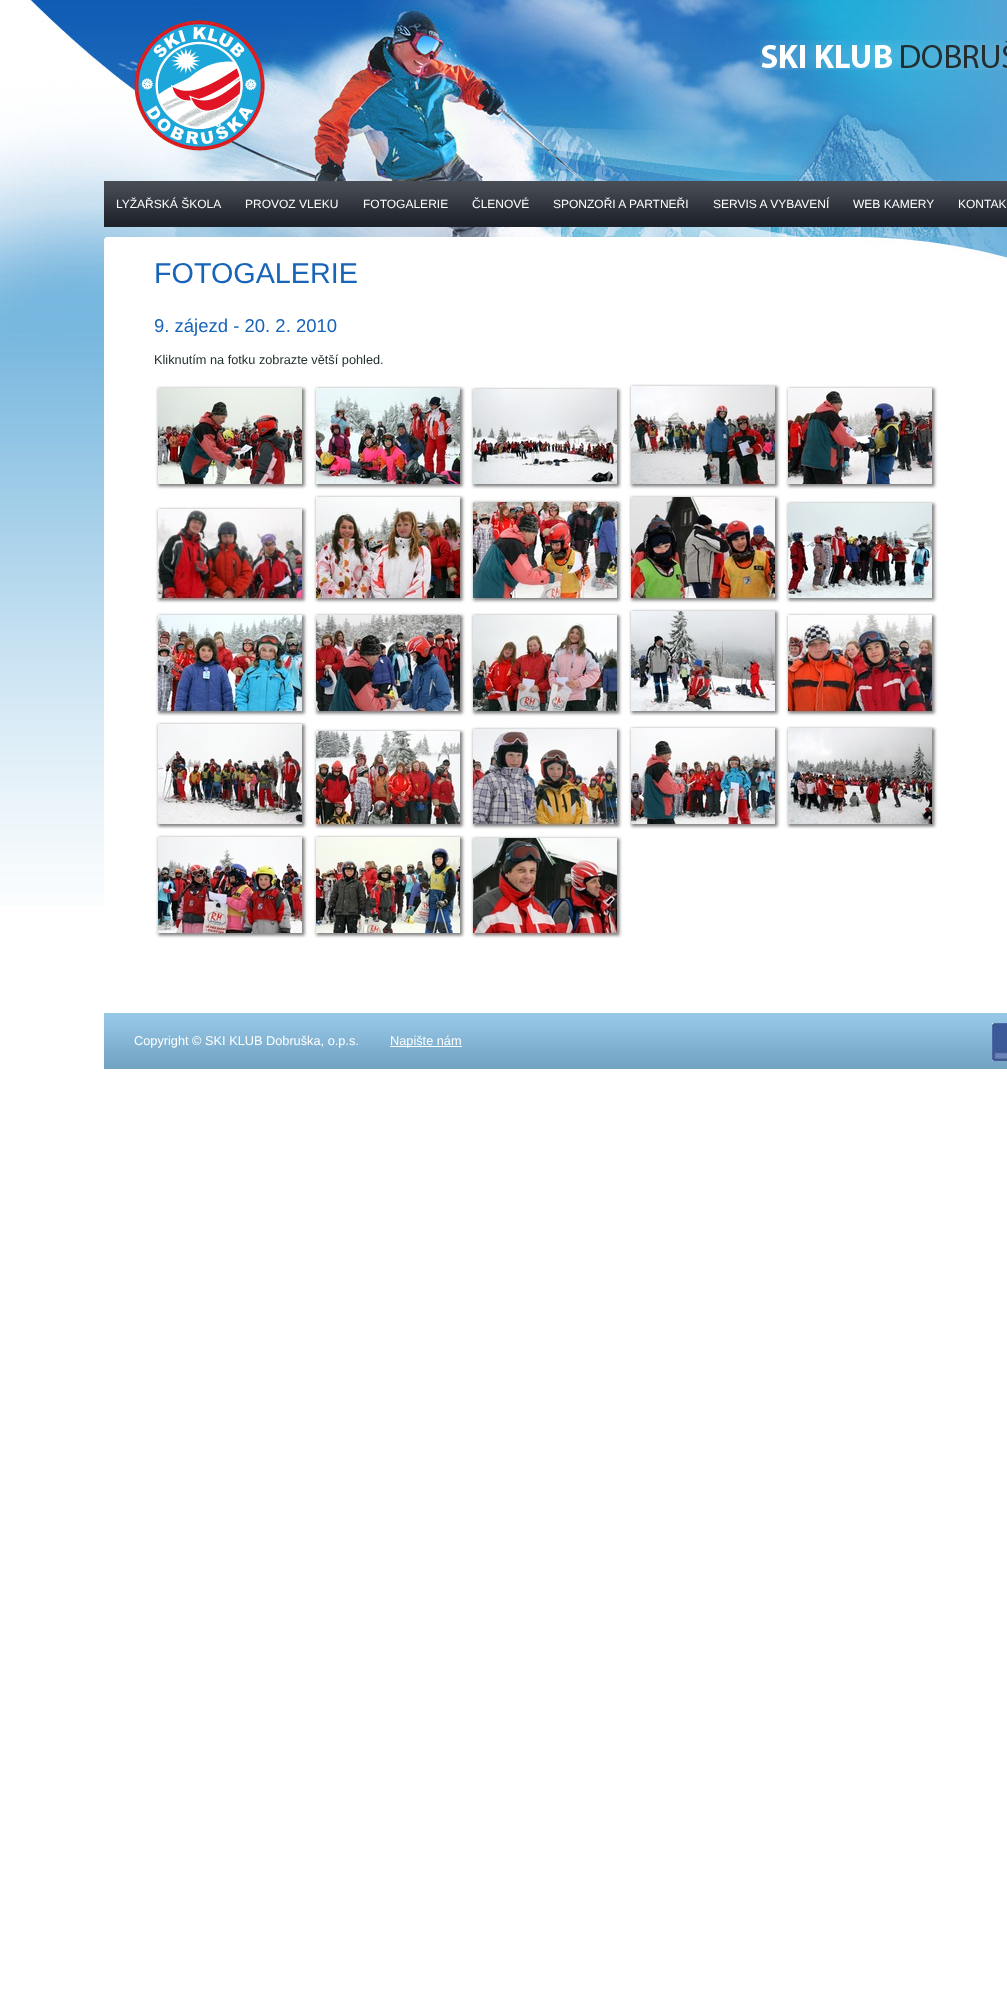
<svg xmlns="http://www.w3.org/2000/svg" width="1007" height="2003">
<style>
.a{font:12px Liberation Sans;fill:#fff}
.b{font:28.75px Liberation Sans;fill:#1864b9}
.c{font:18.5px Liberation Sans;fill:#1864b9}
.d{font:12.75px Liberation Sans;fill:#232e31}
.e{font:12.75px Liberation Sans;fill:#fff}
</style>
<rect width="100%" height="100%" fill="#fff"/>
<image href="1.png" x="0" y="460" width="104" height="446"/>
<image href="2.png" x="0" y="0" width="1007" height="460"/>
<image href="3.png" x="760" y="40" width="247" height="30"/>
<image href="4.png" x="134" y="20" width="131" height="131"/>
<image href="5.png" x="104" y="181" width="903" height="46"/>
<path fill="#fff" d="M104 261h903v199H104z"/>
<image href="6.png" x="104" y="237" width="903" height="24"/>
<image href="7.png" x="154" y="385" width="154" height="105"/>
<image href="8.png" x="312" y="386" width="154" height="104"/>
<image href="9.png" x="469" y="387" width="153" height="102"/>
<image href="10.png" x="627" y="384" width="154" height="106"/>
<image href="11.png" x="784" y="386" width="154" height="104"/>
<image href="12.png" x="154" y="506" width="154" height="97"/>
<image href="13.png" x="312" y="495" width="154" height="109"/>
<image href="14.png" x="469" y="498" width="154" height="106"/>
<image href="15.png" x="627" y="493" width="154" height="111"/>
<image href="16.png" x="784" y="501" width="154" height="102"/>
<image href="17.png" x="154" y="611" width="154" height="106"/>
<image href="18.png" x="312" y="611" width="154" height="106"/>
<image href="19.png" x="469" y="613" width="154" height="104"/>
<image href="20.png" x="627" y="608" width="154" height="108"/>
<image href="21.png" x="784" y="612" width="154" height="105"/>
<image href="22.png" x="155" y="722" width="153" height="107"/>
<image href="23.png" x="312" y="728" width="154" height="102"/>
<image href="24.png" x="469" y="725" width="154" height="105"/>
<image href="25.png" x="627" y="726" width="154" height="104"/>
<image href="26.png" x="784" y="726" width="154" height="103"/>
<image href="27.png" x="154" y="835" width="154" height="104"/>
<image href="28.png" x="312" y="835" width="154" height="104"/>
<image href="29.png" x="469" y="834" width="154" height="105"/>
<image href="30.png" x="104" y="1013" width="903" height="56"/>
<path fill="#fff" d="M390 1046h72v1H390z"/>
<image href="31.png" x="992" y="1023" width="15" height="38"/>
<text class="a" x="116" y="208">LYŽAŘSKÁ ŠKOLA</text>
<text class="a" x="245" y="208">PROVOZ VLEKU</text>
<text class="a" x="363" y="208">FOTOGALERIE</text>
<text class="a" x="472" y="208">ČLENOVÉ</text>
<text class="a" x="553" y="208">SPONZOŘI A PARTNEŘI</text>
<text class="a" x="713" y="208">SERVIS A VYBAVENÍ</text>
<text class="a" x="853" y="208">WEB KAMERY</text>
<text class="a" x="958" y="208">KONTAK</text>
<text class="b" x="154" y="283">FOTOGALERIE</text>
<text class="c" x="154" y="332">9. zájezd - 20. 2. 2010</text>
<text class="d" x="154" y="364">Kliknutím na fotku zobrazte větší pohled.</text>
<text class="e" x="134" y="1045">Copyright © SKI KLUB Dobruška, o.p.s.</text>
<text class="e" x="390" y="1045">Napište nám</text>
</svg>
